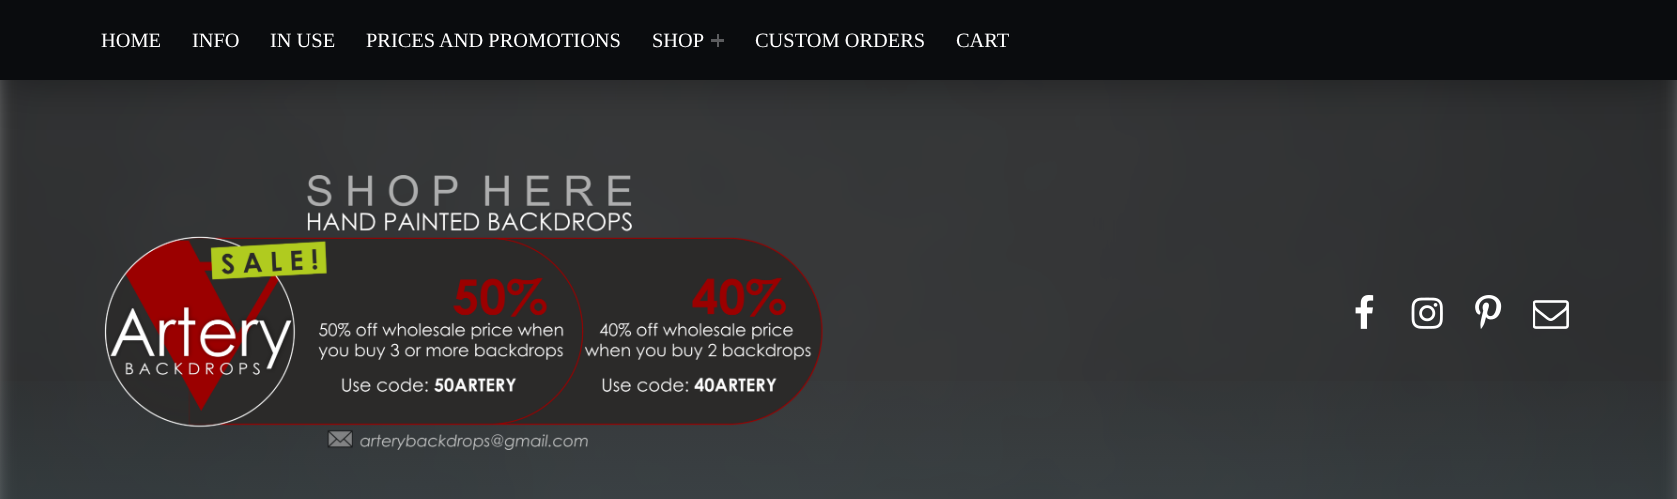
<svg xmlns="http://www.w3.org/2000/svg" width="1677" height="499">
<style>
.a{font:20.4px Liberation Serif;fill:#fff}
</style>
<defs>
<linearGradient id="g1" gradientUnits="userSpaceOnUse" x1="839" y1="355" x2="839" y2="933"><stop offset="0" stop-color="#455c63" stop-opacity="0"/><stop offset="1" stop-color="#455c63"/></linearGradient>
</defs>
<rect width="100%" height="100%" fill="#fff"/>
<image href="6.png" x="0" y="80" width="1677" height="419"/>
<path fill="#00000066" filter="blur(22.5px)" d="M0 0h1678v80H0z"/>
<path fill="#0a0c0e" d="M0 0h1677v80H0z"/>
<path fill="#5b5c5e" d="M711 39h13v3H711z"/>
<path fill="#5b5c5e" d="M717 34h2v13H717z"/>
<path fill="url(#g1)" d="M0 381h1677v118H0z"/>
<image href="1.png" x="104" y="175" width="719" height="275"/>
<image href="2.png" x="1355" y="295" width="19" height="34"/>
<image href="3.png" x="1411" y="297" width="32" height="32"/>
<image href="4.png" x="1475" y="295" width="27" height="34"/>
<image href="5.png" x="1533" y="300" width="36" height="29"/>
<text class="a" x="101" y="47">HOME</text>
<text class="a" x="192" y="47">INFO</text>
<text class="a" x="270" y="47">IN USE</text>
<text class="a" x="366" y="47">PRICES AND PROMOTIONS</text>
<text class="a" x="652" y="47">SHOP</text>
<text class="a" x="755" y="47">CUSTOM ORDERS</text>
<text class="a" x="956" y="47">CART</text>
</svg>
